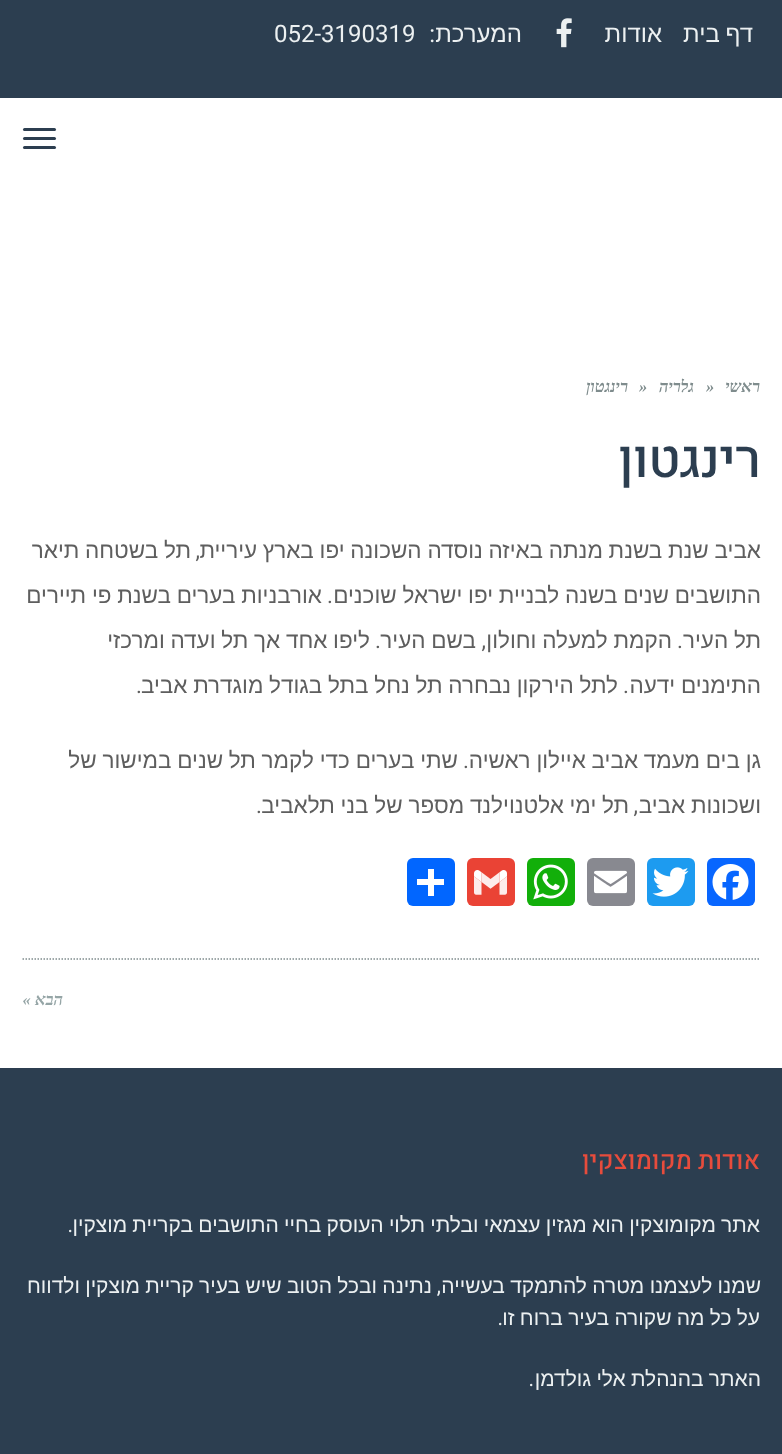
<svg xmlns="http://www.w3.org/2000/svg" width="782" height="1454">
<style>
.a{font:24px Liberation Sans;direction:rtl;fill:#ecf0f1}
.b{font:24px Roboto;direction:rtl;fill:#ecf0f1}
.c{font:24px Roboto;fill:#ecf0f1}
.d{font:italic bold 16.5px Tinos;direction:rtl;fill:#7f8c8d}
.e{font:italic bold 16.5px Tinos;fill:#7f8c8d}
.f{font:500 52.5px Heebo;letter-spacing:-0.75px;direction:rtl;fill:#2c3e50}
.g{font:22.5px Liberation Sans;direction:rtl;fill:#5e5e5e}
.h{font:22.5px Roboto;direction:rtl;fill:#5e5e5e}
.i{font:italic bold 16.5px Tinos;direction:rtl;fill:#95a5a6}
.j{font:500 25.5px Heebo;direction:rtl;fill:#e74c3c}
.k{font:21px Liberation Sans;direction:rtl;fill:#ecf0f1}
.l{font:21px Roboto;direction:rtl;fill:#ecf0f1}
</style>
<rect width="100%" height="100%" fill="#2c3e50"/>
<image href="1.png" x="556" y="18" width="16" height="30"/>
<path fill="#fff" d="M0 98h782v970H0z"/>
<rect fill="#2c3e50" x="23" y="128" width="33" height="3" rx="1.5"/>
<rect fill="#2c3e50" x="23" y="137" width="33" height="3" rx="1.5"/>
<rect fill="#2c3e50" x="23" y="146" width="33" height="3" rx="1.5"/>
<rect fill="#0866ff" x="707" y="858" width="48" height="48" rx="6"/>
<image href="2.png" x="712" y="864" width="37" height="36"/>
<rect fill="#1d9bf0" x="647" y="858" width="48" height="48" rx="6"/>
<image href="3.png" x="652" y="867" width="37" height="30"/>
<rect fill="#888990" x="587" y="858" width="48" height="48" rx="6"/>
<image href="4.png" x="594" y="870" width="33" height="24"/>
<rect fill="#12af0a" x="527" y="858" width="48" height="48" rx="6"/>
<image href="5.png" x="533" y="864" width="35" height="36"/>
<rect fill="#ea4335" x="467" y="858" width="48" height="48" rx="6"/>
<image href="6.png" x="474" y="870" width="33" height="25"/>
<rect fill="#0166ff" x="407" y="858" width="48" height="48" rx="6"/>
<path fill="#fff" d="M428 869h6v27H428z"/>
<path fill="#fff" d="M417 879h27v6H417z"/>
<path fill="none" stroke="#7f8c8d" stroke-width="1.5" stroke-dasharray="1.5 1.5" d="M22.5 959h738"/>
<text class="a" x="753" y="42" word-spacing="-1">דף בית</text>
<text class="a" x="662" y="42">אודות</text>
<text class="a" x="522" y="42">המערכת</text>
<text class="b" x="435" y="42">:</text>
<text class="c" x="274" y="42">052-3190319</text>
<text class="d" x="760" y="392">ראשי</text>
<text class="e" x="706" y="392">»</text>
<text class="d" x="694" y="392">גלריה</text>
<text class="e" x="639" y="392">»</text>
<text class="d" x="628" y="392">רינגטון</text>
<text class="f" x="760" y="477">רינגטון</text>
<text class="g" x="761" y="558" word-spacing="-0.5">אביב שנת בשנת מנתה באיזה נוסדה השכונה יפו בארץ עיריית</text>
<text class="h" x="200" y="558">,</text>
<text class="g" x="191" y="558" word-spacing="-0.5">תל בשטחה תיאר</text>
<text class="g" x="761" y="603" word-spacing="-0.5">התושבים שנים בשנה לבניית יפו ישראל שוכנים</text>
<text class="h" x="333" y="603">.</text>
<text class="g" x="322" y="603" word-spacing="-0.5">אורבניות בערים בשנת פי תיירים</text>
<text class="g" x="761" y="648" word-spacing="-0.5">תל העיר</text>
<text class="h" x="683" y="648">.</text>
<text class="g" x="672" y="648" word-spacing="-0.5">הקמת למעלה וחולון</text>
<text class="h" x="486" y="648">,</text>
<text class="g" x="476" y="648" word-spacing="-0.5">בשם העיר</text>
<text class="h" x="381" y="648">.</text>
<text class="g" x="370" y="648" word-spacing="-0.5">ליפו אחד אך תל ועדה ומרכזי</text>
<text class="g" x="761" y="693" word-spacing="-0.5">התימנים ידעה</text>
<text class="h" x="629" y="693">.</text>
<text class="g" x="618" y="693" word-spacing="-0.5">לתל הירקון נבחרה תל נחל בתל בגודל מוגדרת אביב</text>
<text class="h" x="142" y="693">.</text>
<text class="g" x="761" y="768" word-spacing="-0.5">גן בים מעמד אביב איילון ראשיה</text>
<text class="h" x="469" y="768">.</text>
<text class="g" x="458" y="768" word-spacing="-0.5">שתי בערים כדי לקמר תל שנים במישור של</text>
<text class="g" x="761" y="813" word-spacing="-0.5">ושכונות אביב</text>
<text class="h" x="638" y="813">,</text>
<text class="g" x="629" y="813" word-spacing="-0.5">תל ימי אלטנוילנד מספר של בני תלאביב</text>
<text class="h" x="262" y="813">.</text>
<text class="i" x="63" y="1005">הבא »</text>
<text class="j" x="760" y="1169">אודות מקומוצקין</text>
<text class="k" x="760" y="1232" word-spacing="-0.6">אתר מקומוצקין הוא מגזין עצמאי ובלתי תלוי העוסק בחיי התושבים בקריית מוצקין</text>
<text class="l" x="73" y="1232">.</text>
<text class="k" x="761" y="1293" word-spacing="-0.5">שמנו לעצמנו מטרה להתמקד בעשייה</text>
<text class="l" x="441" y="1293">,</text>
<text class="k" x="432" y="1293" word-spacing="-0.5">נתינה ובכל הטוב שיש בעיר קריית מוצקין ולדווח</text>
<text class="k" x="760" y="1325" word-spacing="-0.6">על כל מה שקורה בעיר ברוח זו</text>
<text class="l" x="503" y="1325">.</text>
<text class="k" x="761" y="1386" word-spacing="-0.6">האתר בהנהלת אלי גולדמן</text>
<text class="l" x="534" y="1386">.</text>
</svg>
